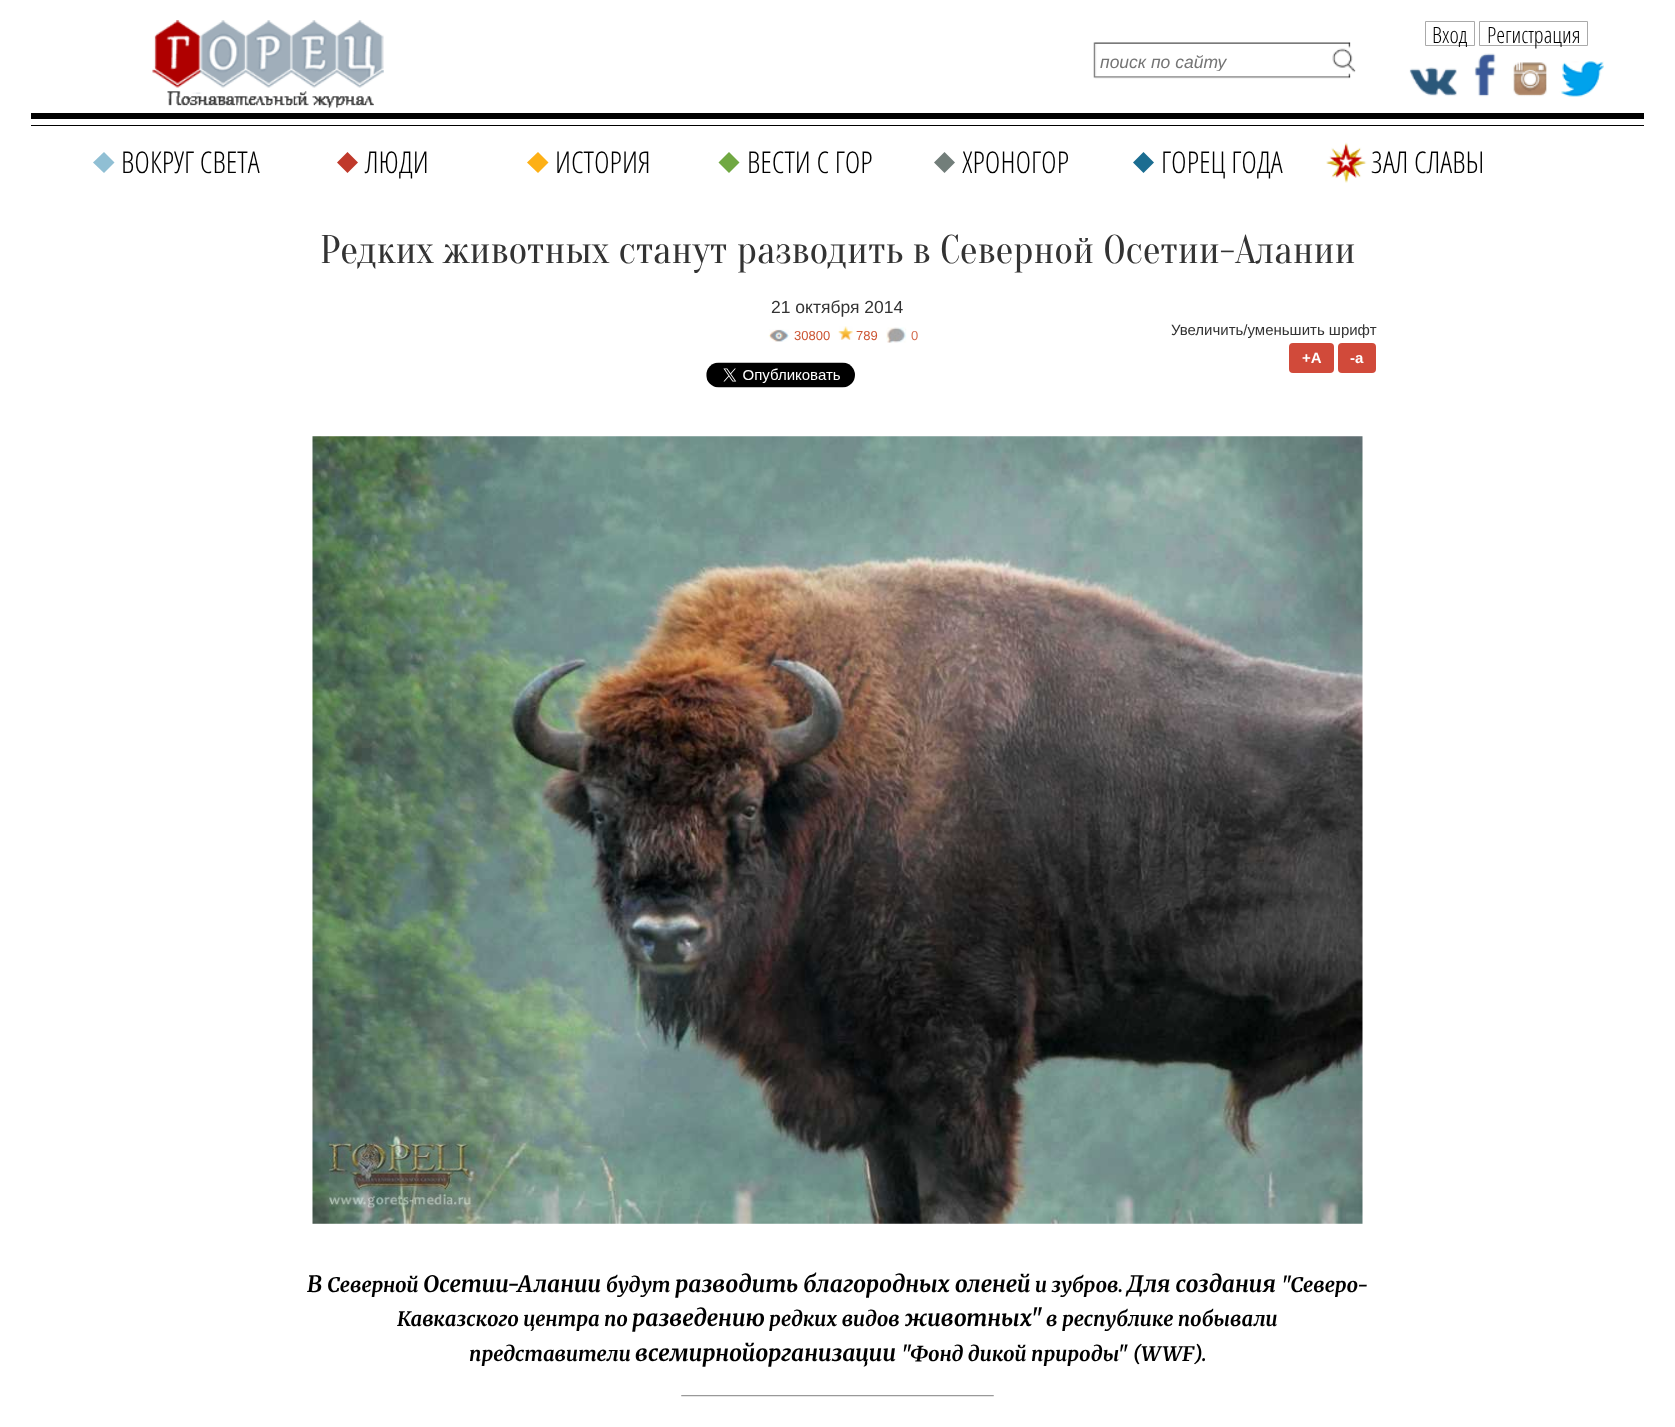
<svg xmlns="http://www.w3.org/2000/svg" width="1675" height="1427">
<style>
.a{font:300 22.5px Open Sans Condensed;fill:#000}
.b{font:italic 17.5px Liberation Sans;fill:#757575}
.c{font:300 30px Open Sans Condensed;fill:#000}
.d{font:40px Oranienbaum;fill:#333}
.e{font:17.5px Liberation Sans;fill:#333}
.f{font:13px Liberation Sans;fill:#c53}
.g{font:13px Liberation Sans;fill:#d46f52}
.h{font:italic bold 22.5px Merriweather;fill:#000}
.i{font:italic bold 20px Merriweather;fill:#000}
.j{font:15px Liberation Sans;fill:#333}
.k{font:bold 15px Liberation Sans;fill:#fff}
</style>
<defs>
<clipPath id="clip1"><path d="M1100 51h245v20H1100z"/></clipPath>
</defs>
<rect width="100%" height="100%" fill="#fff"/>
<path fill="#000" d="M31 113h1613v6H31z"/>
<image href="1.png" x="152" y="20" width="232" height="88"/>
<path fill="none" stroke="#aaa" d="M1425.5 21.5h49v24H1425.5z"/>
<path fill="none" stroke="#aaa" d="M1479.5 21.5h108v24H1479.5z"/>
<image href="2.png" x="1093" y="42" width="258" height="37"/>
<image href="3.png" x="1332" y="48" width="24" height="25"/>
<image href="4.png" x="1409" y="53" width="195" height="44"/>
<path fill="#000" d="M31 125h1613v1H31z"/>
<path fill="#90bfd4" d="M104 152l10.5 10.5l-10.5 10.5l-11-10.5z"/>
<path fill="#c0392b" d="M347.5 152l10.5 10.5l-10.5 10.5l-10.5-10.5z"/>
<path fill="#fdb016" d="M538 152l10.5 10.5l-10.5 10.5l-11-10.5z"/>
<path fill="#70a842" d="M729 152l10.5 10.5l-10.5 10.5l-10.5-10.5z"/>
<path fill="#727e7a" d="M944.5 152l10.5 10.5l-10.5 10.5l-10.5-10.5z"/>
<path fill="#1b6d91" d="M1143.5 152l10.5 10.5l-10.5 10.5l-10.5-10.5z"/>
<image href="5.png" x="1326" y="142" width="41" height="41"/>
<image href="6.png" x="768" y="329" width="21" height="13"/>
<image href="7.png" x="838" y="326" width="15" height="14"/>
<image href="8.png" x="886" y="327" width="21" height="16"/>
<image href="9.png" x="706" y="362" width="149" height="26"/>
<image href="10.png" x="312" y="436" width="1051" height="788"/>
<image href="11.png" x="681" y="1395" width="313" height="2"/>
<rect fill="#d14a3a" x="1289" y="343" width="45" height="30" rx="4"/>
<rect fill="#d14a3a" x="1338" y="343" width="38" height="30" rx="4"/>
<text class="a" x="1432" y="43">Вход</text>
<text class="a" x="1487" y="43">Регистрация</text>
<g clip-path="url(#clip1)">
<text class="b" x="1100" y="68">поиск по сайту</text>
</g>
<text class="c" x="121" y="173">ВОКРУГ СВЕТА</text>
<text class="c" x="365" y="173">ЛЮДИ</text>
<text class="c" x="555" y="173">ИСТОРИЯ</text>
<text class="c" x="747" y="173">ВЕСТИ С ГОР</text>
<text class="c" x="962" y="173">ХРОНОГОР</text>
<text class="c" x="1161" y="173">ГОРЕЦ ГОДА</text>
<text class="c" x="1371" y="173">ЗАЛ СЛАВЫ</text>
<text class="d" x="320" y="263">Редких животных станут разводить в Северной Осетии-Алании</text>
<text class="e" x="771" y="313">21 октября 2014</text>
<text class="f" x="794" y="340">30800</text>
<text class="f" x="856" y="340">789</text>
<text class="g" x="911" y="340">0</text>
<text class="h" x="307" y="1292">В</text>
<text class="i" x="327" y="1292">Северной</text>
<text class="h" x="423" y="1292">Осетии-Алании</text>
<text class="i" x="606" y="1292">будут</text>
<text class="h" x="675" y="1292">разводить благородных оленей</text>
<text class="i" x="1035" y="1292">и зубров.</text>
<text class="h" x="1127" y="1292">Для создания</text>
<text class="i" x="1281" y="1292">"Северо-</text>
<text class="i" x="397" y="1326">Кавказского центра по</text>
<text class="h" x="632" y="1326">разведению</text>
<text class="i" x="769" y="1326">редких видов</text>
<text class="h" x="905" y="1326">животных"</text>
<text class="i" x="1046" y="1326">в республике побывали</text>
<text class="i" x="469" y="1361">представители</text>
<text class="h" x="635" y="1361">всемирнойорганизации</text>
<text class="i" x="901" y="1361">"Фонд дикой природы" (WWF).</text>
<text class="j" x="1171" y="335">Увеличить/уменьшить шрифт</text>
<text class="k" x="1302" y="363">+A</text>
<text class="k" x="1350" y="363">-a</text>
</svg>
